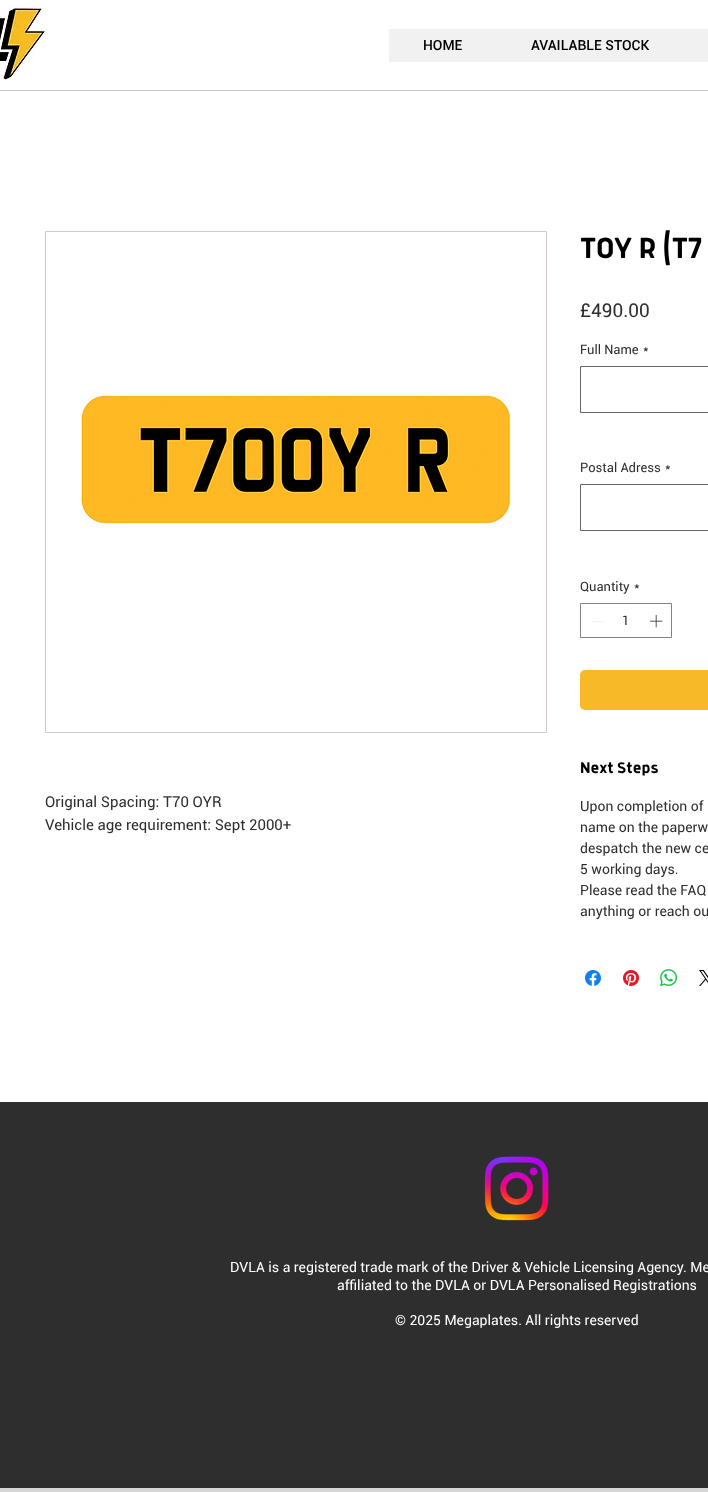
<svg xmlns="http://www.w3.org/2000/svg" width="708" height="1492">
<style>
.a{font:500 14px Roboto;fill:#000}
.b{font:15px Roboto;fill:#2f2e2e}
.c{font:bold 32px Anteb;fill:#000}
.d{font:19px Roboto;fill:#2f2e2e}
.e{font:13px Roboto;fill:#2f2e2e}
.f{font:bold 17px Anteb;fill:#000}
.g{font:14px Roboto;fill:#2f2e2e}
.h{font:14px Roboto;fill:#fff}
</style>
<rect width="100%" height="100%" fill="#d6d6d6"/>
<path fill="#fff" d="M0 0h708v90H0z"/>
<path fill="#d1cac9" d="M0 90h708v1H0z"/>
<image href="1.png" x="0" y="4" width="45" height="76"/>
<path fill="#f1f1f1" d="M389 29h319v33H389z"/>
<path fill="#fff" d="M0 91h708v1011H0z"/>
<path fill="none" stroke="#d1cac9" d="M45.5 231.5h501v501H45.5z"/>
<image href="2.png" x="81" y="393" width="430" height="133"/>
<path fill="none" stroke="#666" d="M580.5 366.5h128v46H580.5z"/>
<path fill="none" stroke="#666" d="M580.5 484.5h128v46H580.5z"/>
<path fill="none" stroke="#828282" d="M580.5 603.5h91v34H580.5z"/>
<path fill="#e3e3e3" fill-rule="evenodd" d="M603 621v.5h-12v-.5z"/>
<image href="3.png" x="650" y="615" width="13" height="13"/>
<rect fill="#f8b928" x="580" y="670" width="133" height="40" rx="5"/>
<image href="4.png" x="585" y="970" width="16" height="16"/>
<image href="5.png" x="623" y="970" width="16" height="16"/>
<image href="6.png" x="660" y="969" width="17" height="17"/>
<image href="7.png" x="699" y="970" width="9" height="16"/>
<path fill="#2f2e2e" d="M0 1102h708v386H0z"/>
<image href="8.png" x="484" y="1156" width="65" height="65"/>
<text class="a" x="423" y="50">HOME</text>
<text class="a" x="531" y="50">AVAILABLE STOCK</text>
<text class="b" x="45" y="807">Original Spacing: T70 OYR</text>
<text class="b" x="45" y="830">Vehicle age requirement: Sept 2000+</text>
<text class="c" x="580" y="258">TOY R (T7</text>
<text class="d" x="580" y="317">£490.00</text>
<text class="e" x="580" y="354">Full Name</text>
<text class="e" x="643" y="354">*</text>
<text class="e" x="580" y="472">Postal Adress</text>
<text class="e" x="665" y="472">*</text>
<text class="e" x="580" y="591">Quantity</text>
<text class="e" x="634" y="591">*</text>
<text class="e" x="622" y="625">1</text>
<text class="f" x="580" y="773">Next Steps</text>
<text class="g" x="580" y="811">Upon completion of</text>
<text class="g" x="580" y="832">name on the paperw</text>
<text class="g" x="580" y="853">despatch the new ce</text>
<text class="g" x="580" y="874">5 working days.</text>
<text class="g" x="580" y="895">Please read the FAQ</text>
<text class="g" x="580" y="916">anything or reach ou</text>
<text class="h" x="230" y="1272">DVLA is a registered trade mark of the Driver &amp; Vehicle Licensing Agency. Me</text>
<text class="h" x="337" y="1290">affiliated to the DVLA or DVLA Personalised Registrations</text>
<text class="h" x="395" y="1325">© 2025 Megaplates. All rights reserved</text>
</svg>
